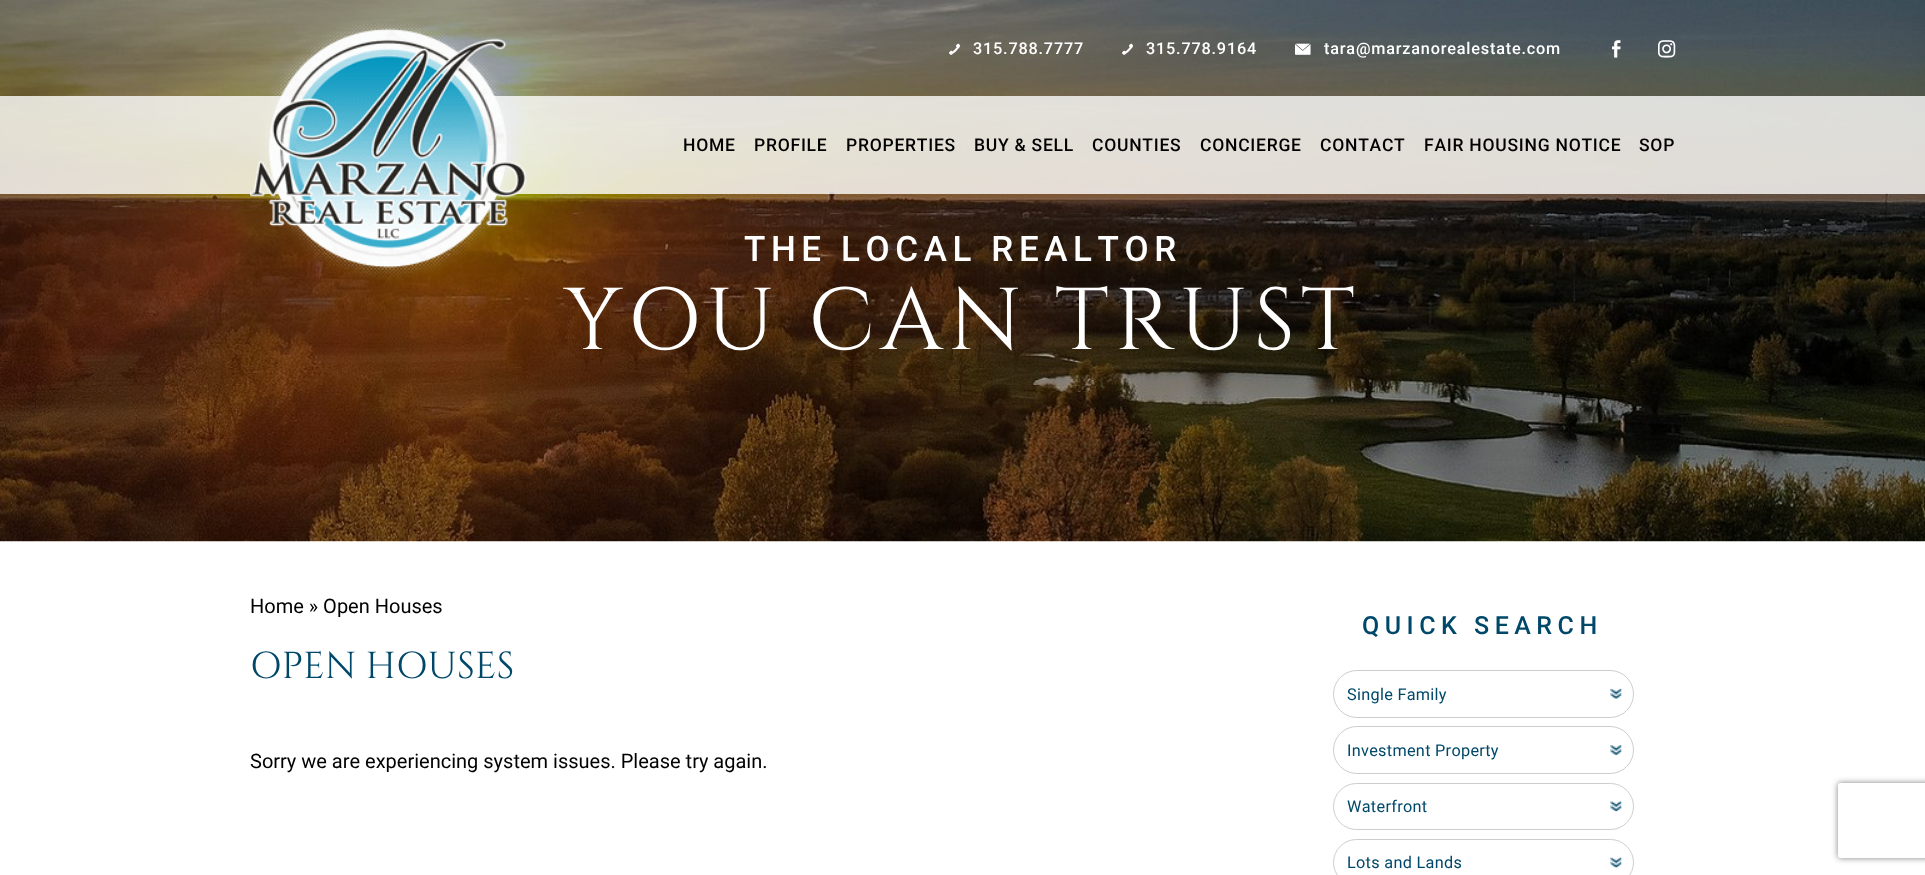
<svg xmlns="http://www.w3.org/2000/svg" width="1925" height="875">
<style>*{font-kerning:none!important;font-variant-ligatures:none!important}</style>
<style>
.a{font:11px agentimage;letter-spacing:0.8px;fill:#fff}
.b{font:500 16.25px Roboto;letter-spacing:0.8px;fill:#fff}
.c{font:21px agentimage;fill:#fff}
.d{font:500 17.5px Roboto;letter-spacing:0.75px;fill:#000}
.e{font:500 35px Roboto;letter-spacing:5.6px;fill:#fff}
.f{font:87.5px Cinzel;letter-spacing:5.6px;fill:#fff}
.g{font:20px Roboto;fill:#000}
.h{font:37.5px Cinzel;fill:#004869}
.i{font:500 25px Roboto;letter-spacing:5.5px;fill:#004869}
.j{font:16.25px Roboto;letter-spacing:0.3px;fill:#004869}
</style>
<defs>
<clipPath id="clip1"><path d="M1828 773h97v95h-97zm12.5 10h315c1.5 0 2.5 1 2.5 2.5v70c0 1.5-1 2.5-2.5 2.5h-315c-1.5 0-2.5-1-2.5-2.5v-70c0-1.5 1-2.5 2.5-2.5z" clip-rule="evenodd"/></clipPath>
</defs>
<rect width="100%" height="100%" fill="#fff"/>
<image href="2.png" x="0" y="0" width="1925" height="542"/>
<path fill="#ffffffcc" d="M0 96h1925v98H0z"/>
<image href="1.png" x="250" y="19" width="277" height="261"/>
<rect fill="none" stroke="#cecece" x="1333.5" y="670.5" width="300" height="47" rx="23.5"/>
<image href="3.png" x="1610" y="688" width="12" height="11"/>
<rect fill="none" stroke="#cecece" x="1333.5" y="726.5" width="300" height="47" rx="23.5"/>
<image href="4.png" x="1610" y="745" width="12" height="10"/>
<rect fill="none" stroke="#cecece" x="1333.5" y="783.5" width="300" height="46" rx="23"/>
<image href="5.png" x="1610" y="801" width="12" height="11"/>
<rect fill="none" stroke="#cecece" x="1333.5" y="839.5" width="300" height="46" rx="23"/>
<image href="6.png" x="1610" y="857" width="12" height="11"/>
<g clip-path="url(#clip1)">
<rect fill="#808080" filter="blur(3px)" x="1838" y="783" width="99" height="75" rx="2.5"/>
</g>
<text class="a" x="949" y="54">򰈄</text>
<text class="b" x="973" y="54">315.788.7777</text>
<text class="a" x="1122" y="54">򰈄</text>
<text class="b" x="1146" y="54">315.778.9164</text>
<text class="a" x="1295" y="54">򰄡</text>
<text class="b" x="1324" y="54">tara@marzanorealestate.com</text>
<text class="c" x="1612" y="58">򰄔</text>
<text class="c" x="1658" y="58">򰄆</text>
<text class="d" x="683" y="151">HOME</text>
<text class="d" x="754" y="151">PROFILE</text>
<text class="d" x="846" y="151">PROPERTIES</text>
<text class="d" x="974" y="151">BUY &amp; SELL</text>
<text class="d" x="1092" y="151">COUNTIES</text>
<text class="d" x="1200" y="151">CONCIERGE</text>
<text class="d" x="1320" y="151">CONTACT</text>
<text class="d" x="1424" y="151">FAIR HOUSING NOTICE</text>
<text class="d" x="1639" y="151">SOP</text>
<text class="e" x="744" y="261">THE LOCAL REALTOR</text>
<text class="f" x="564" y="349">YOU CAN TRUST</text>
<text class="g" x="250" y="613">Home » Open Houses</text>
<text class="h" x="250" y="678">OPEN HOUSES</text>
<text class="g" x="250" y="768">Sorry we are experiencing system issues. Please try again.</text>
<text class="i" x="1362" y="634">QUICK SEARCH</text>
<text class="j" x="1347" y="700">Single Family</text>
<text class="j" x="1347" y="756">Investment Property</text>
<text class="j" x="1347" y="812">Waterfront</text>
<text class="j" x="1347" y="868">Lots and Lands</text>
</svg>
